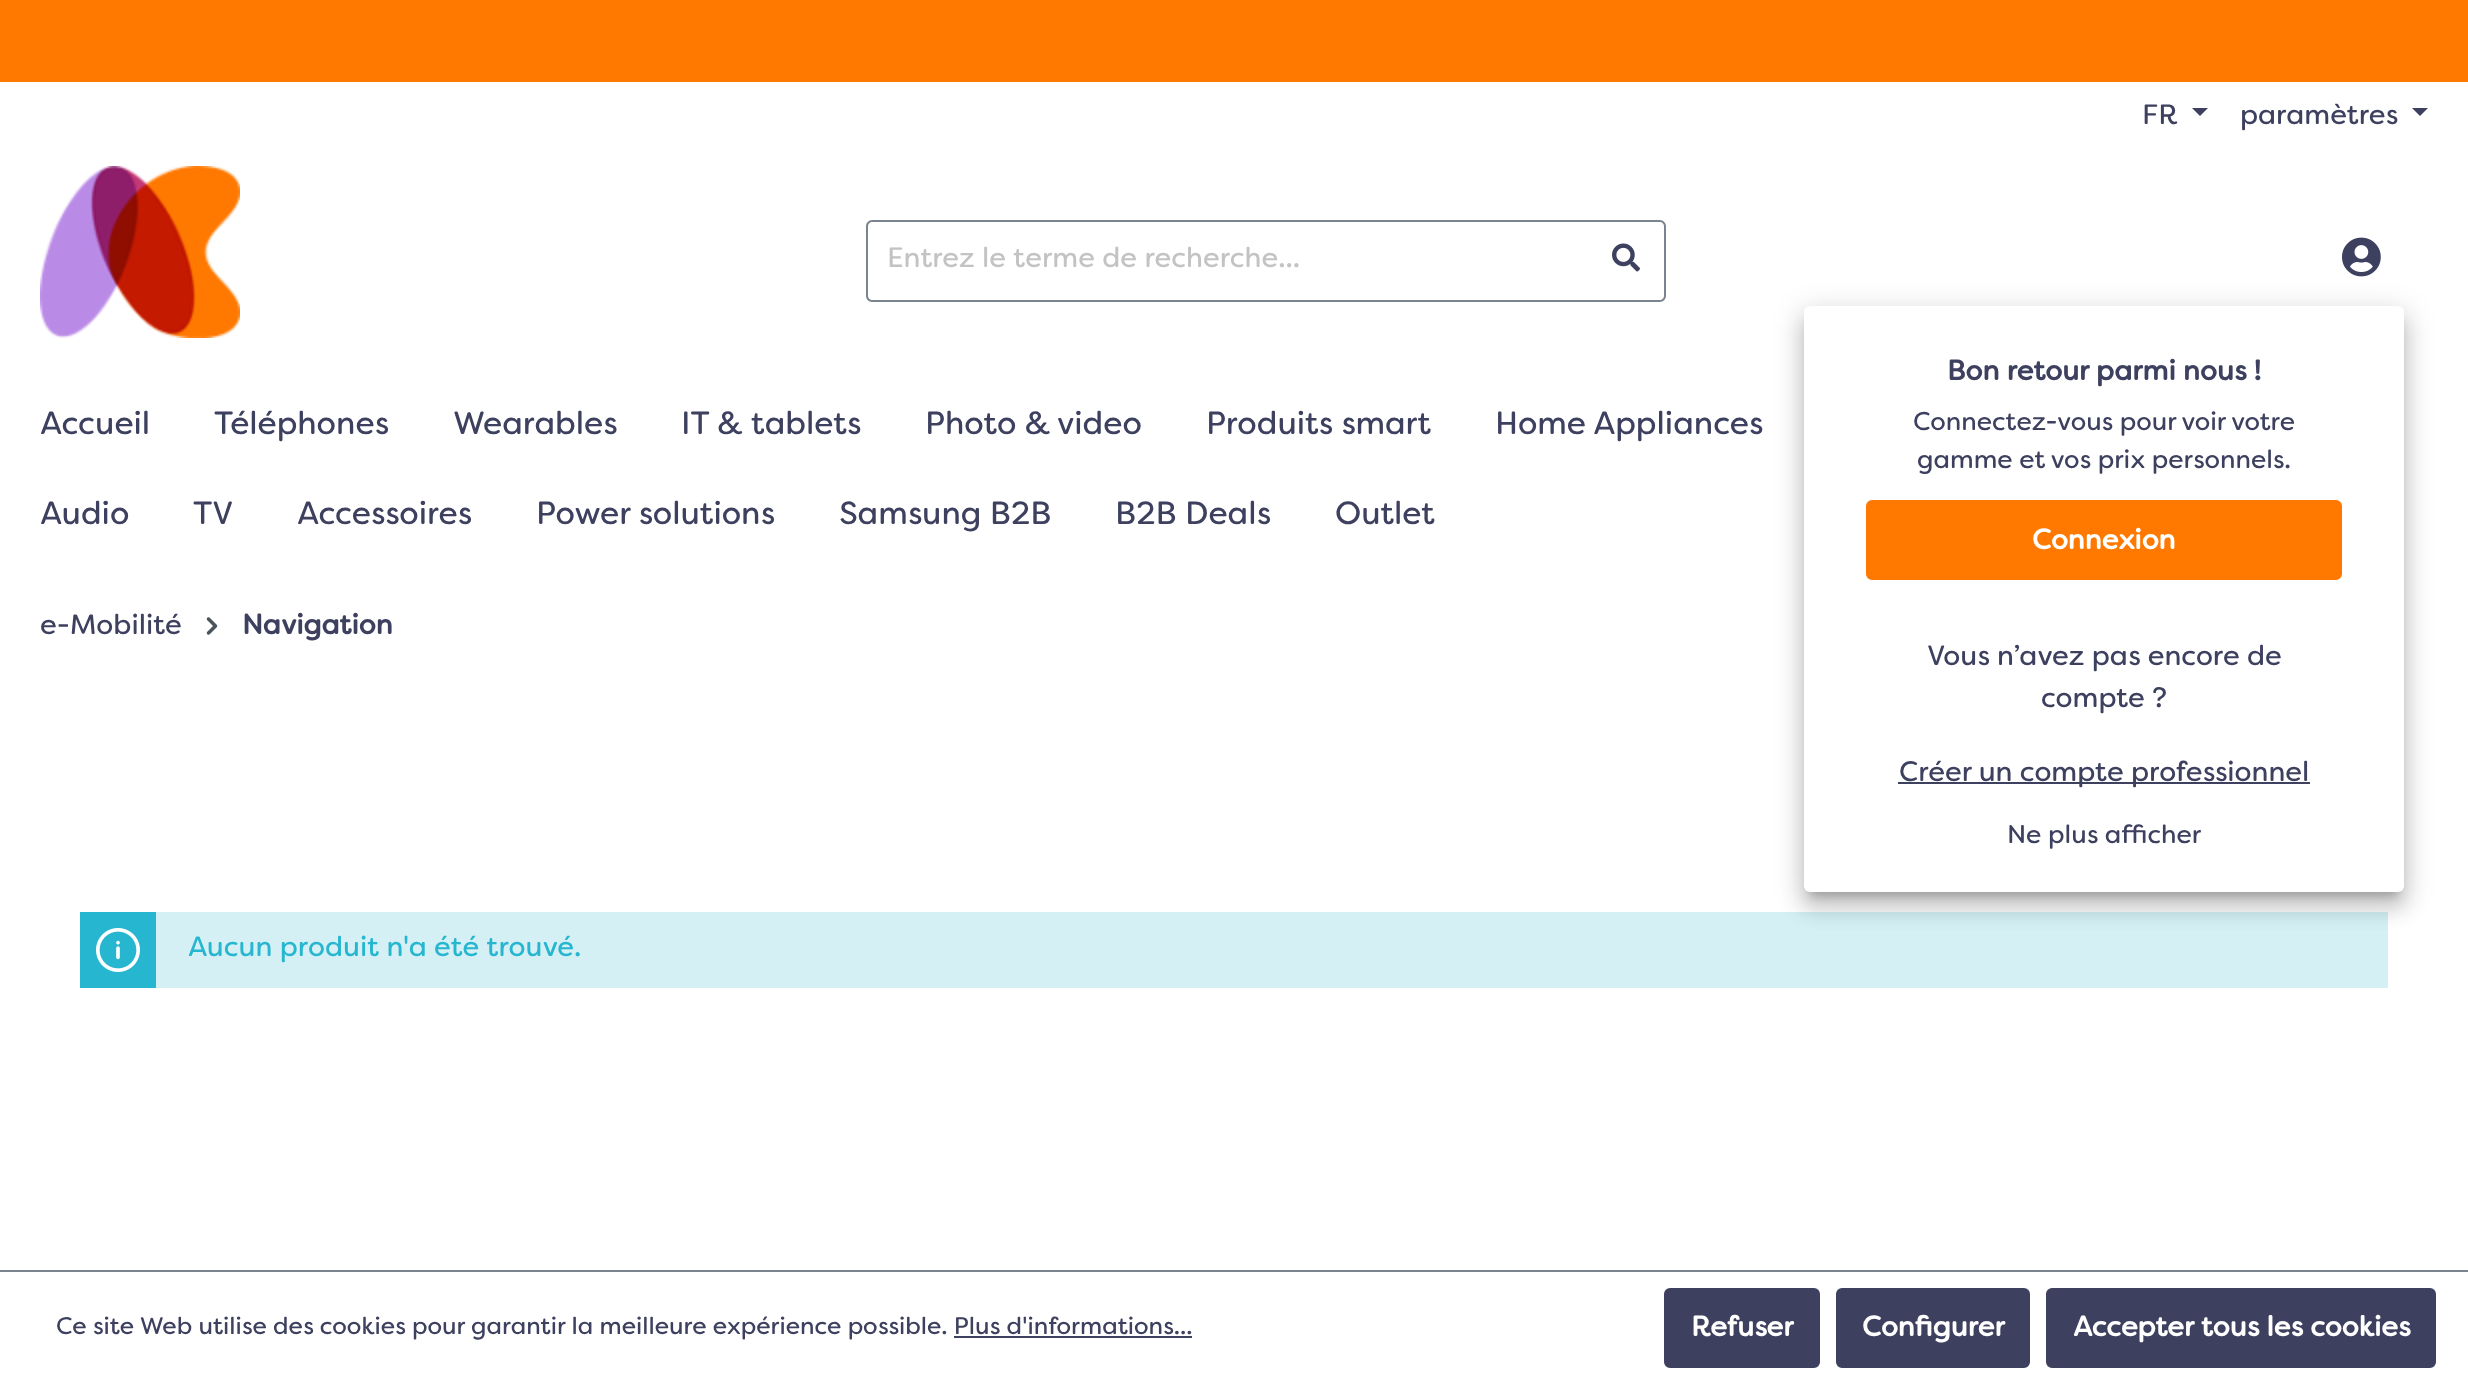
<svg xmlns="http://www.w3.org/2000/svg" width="2468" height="1384">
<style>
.a{font:28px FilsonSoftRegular;fill:#3d405e}
.b{font:28px FilsonSoftRegular;fill:#c3c3c3}
.c{font:bold 28px FilsonSoftRegular;fill:#3d405e}
.d{font:25.6px FilsonSoftRegular;fill:#3d405e}
.e{font:bold 28px FilsonSoftRegular;fill:#fff}
.f{font:32px FilsonSoftRegular;fill:#3d405e}
.g{font:28px FilsonSoftRegular;fill:#26b6cf}
.h{font:24px FilsonSoftRegular;fill:#3d405e}
</style>
<rect width="100%" height="100%" fill="#fff"/>
<path fill="#ff7800" d="M0 0h2468v82H0z"/>
<path fill="#3d405e" d="M2192 108h16l-8 8z"/>
<path fill="#3d405e" d="M2412 108h16l-8 8z"/>
<image href="1.png" x="40" y="166" width="200" height="172"/>
<path fill="#798490" fill-rule="evenodd" d="M872 220h718v82h-718c-3 0-6-3-6-6v-70c0-3 3-6 6-6zm0 2h718v78h-718c-2 0-4-2-4-4v-70c0-2 2-4 4-4z"/>
<path fill="#fff" d="M1588 220h72c3.5 0 6 2.5 6 6v70c0 3.5-2.5 6-6 6h-72z"/>
<path fill="#798490" fill-rule="evenodd" d="M1588 220h72c3 0 6 3 6 6v70c0 3-3 6-6 6h-72zm0 2h72c2 0 4 2 4 4v70c0 2-2 4-4 4h-72z"/>
<image href="2.png" x="1612" y="243" width="28" height="29"/>
<image href="3.png" x="2342" y="237" width="39" height="40"/>
<path fill="#d4f0f5" d="M156 912h2232v76H156z"/>
<rect fill="#0000001f" filter="blur(14px)" x="1800" y="308" width="608" height="594" rx="10"/>
<rect fill="#00000024" filter="blur(10px)" x="1802" y="320" width="604" height="590" rx="8"/>
<path fill="#00000033" filter="blur(5px)" d="M1810 322h588v574H1810z"/>
<rect fill="#fff" x="1804" y="306" width="600" height="586" rx="6"/>
<rect fill="#ff7800" stroke="#ff7800" stroke-width="2" x="1867" y="501" width="474" height="78" rx="5"/>
<path fill="#3d405e" d="M1898 782h412v2H1898z"/>
<image href="4.png" x="206" y="617" width="12" height="18"/>
<path fill="#26b6cf" d="M80 912h76v76H80z"/>
<image href="5.png" x="96" y="928" width="44" height="44"/>
<path fill="#798490" d="M0 1270h2468v2H0z"/>
<path fill="#3d405e" d="M954 1336h238v2H954z"/>
<rect fill="#3d405e" stroke="#3d405e" stroke-width="2" x="1665" y="1289" width="154" height="78" rx="5"/>
<rect fill="#3d405e" stroke="#3d405e" stroke-width="2" x="1837" y="1289" width="192" height="78" rx="5"/>
<rect fill="#3d405e" stroke="#3d405e" stroke-width="2" x="2047" y="1289" width="388" height="78" rx="5"/>
<text class="a" x="2142" y="124">FR</text>
<text class="a" x="2240" y="124">paramètres</text>
<text class="b" x="887" y="267">Entrez le terme de recherche...</text>
<text class="c" x="1947" y="380">Bon retour parmi nous !</text>
<text class="d" x="1913" y="430">Connectez-vous pour voir votre</text>
<text class="d" x="1917" y="468">gamme et vos prix personnels.</text>
<text class="e" x="2032" y="549">Connexion</text>
<text class="a" x="1927" y="665">Vous n’avez pas encore de</text>
<text class="a" x="2041" y="707">compte ?</text>
<text class="a" x="1899" y="781">Créer un compte professionnel</text>
<text class="d" x="2007" y="843">Ne plus afficher</text>
<text class="f" x="40" y="434">Accueil</text>
<text class="f" x="214" y="434">Téléphones</text>
<text class="f" x="453" y="434">Wearables</text>
<text class="f" x="681" y="434">IT &amp; tablets</text>
<text class="f" x="925" y="434">Photo &amp; video</text>
<text class="f" x="1206" y="434">Produits smart</text>
<text class="f" x="1495" y="434">Home Appliances</text>
<text class="f" x="40" y="524">Audio</text>
<text class="f" x="193" y="524">TV</text>
<text class="f" x="297" y="524">Accessoires</text>
<text class="f" x="536" y="524">Power solutions</text>
<text class="f" x="839" y="524">Samsung B2B</text>
<text class="f" x="1115" y="524">B2B Deals</text>
<text class="f" x="1335" y="524">Outlet</text>
<text class="a" x="40" y="634">e-Mobilité</text>
<text class="c" x="242" y="634">Navigation</text>
<text class="g" x="188" y="956">Aucun produit n'a été trouvé.</text>
<text class="h" x="56" y="1334">Ce site Web utilise des cookies pour garantir la meilleure expérience possible. Plus d'informations...</text>
<text class="e" x="1691" y="1336">Refuser</text>
<text class="e" x="1862" y="1336">Configurer</text>
<text class="e" x="2073" y="1336">Accepter tous les cookies</text>
</svg>
